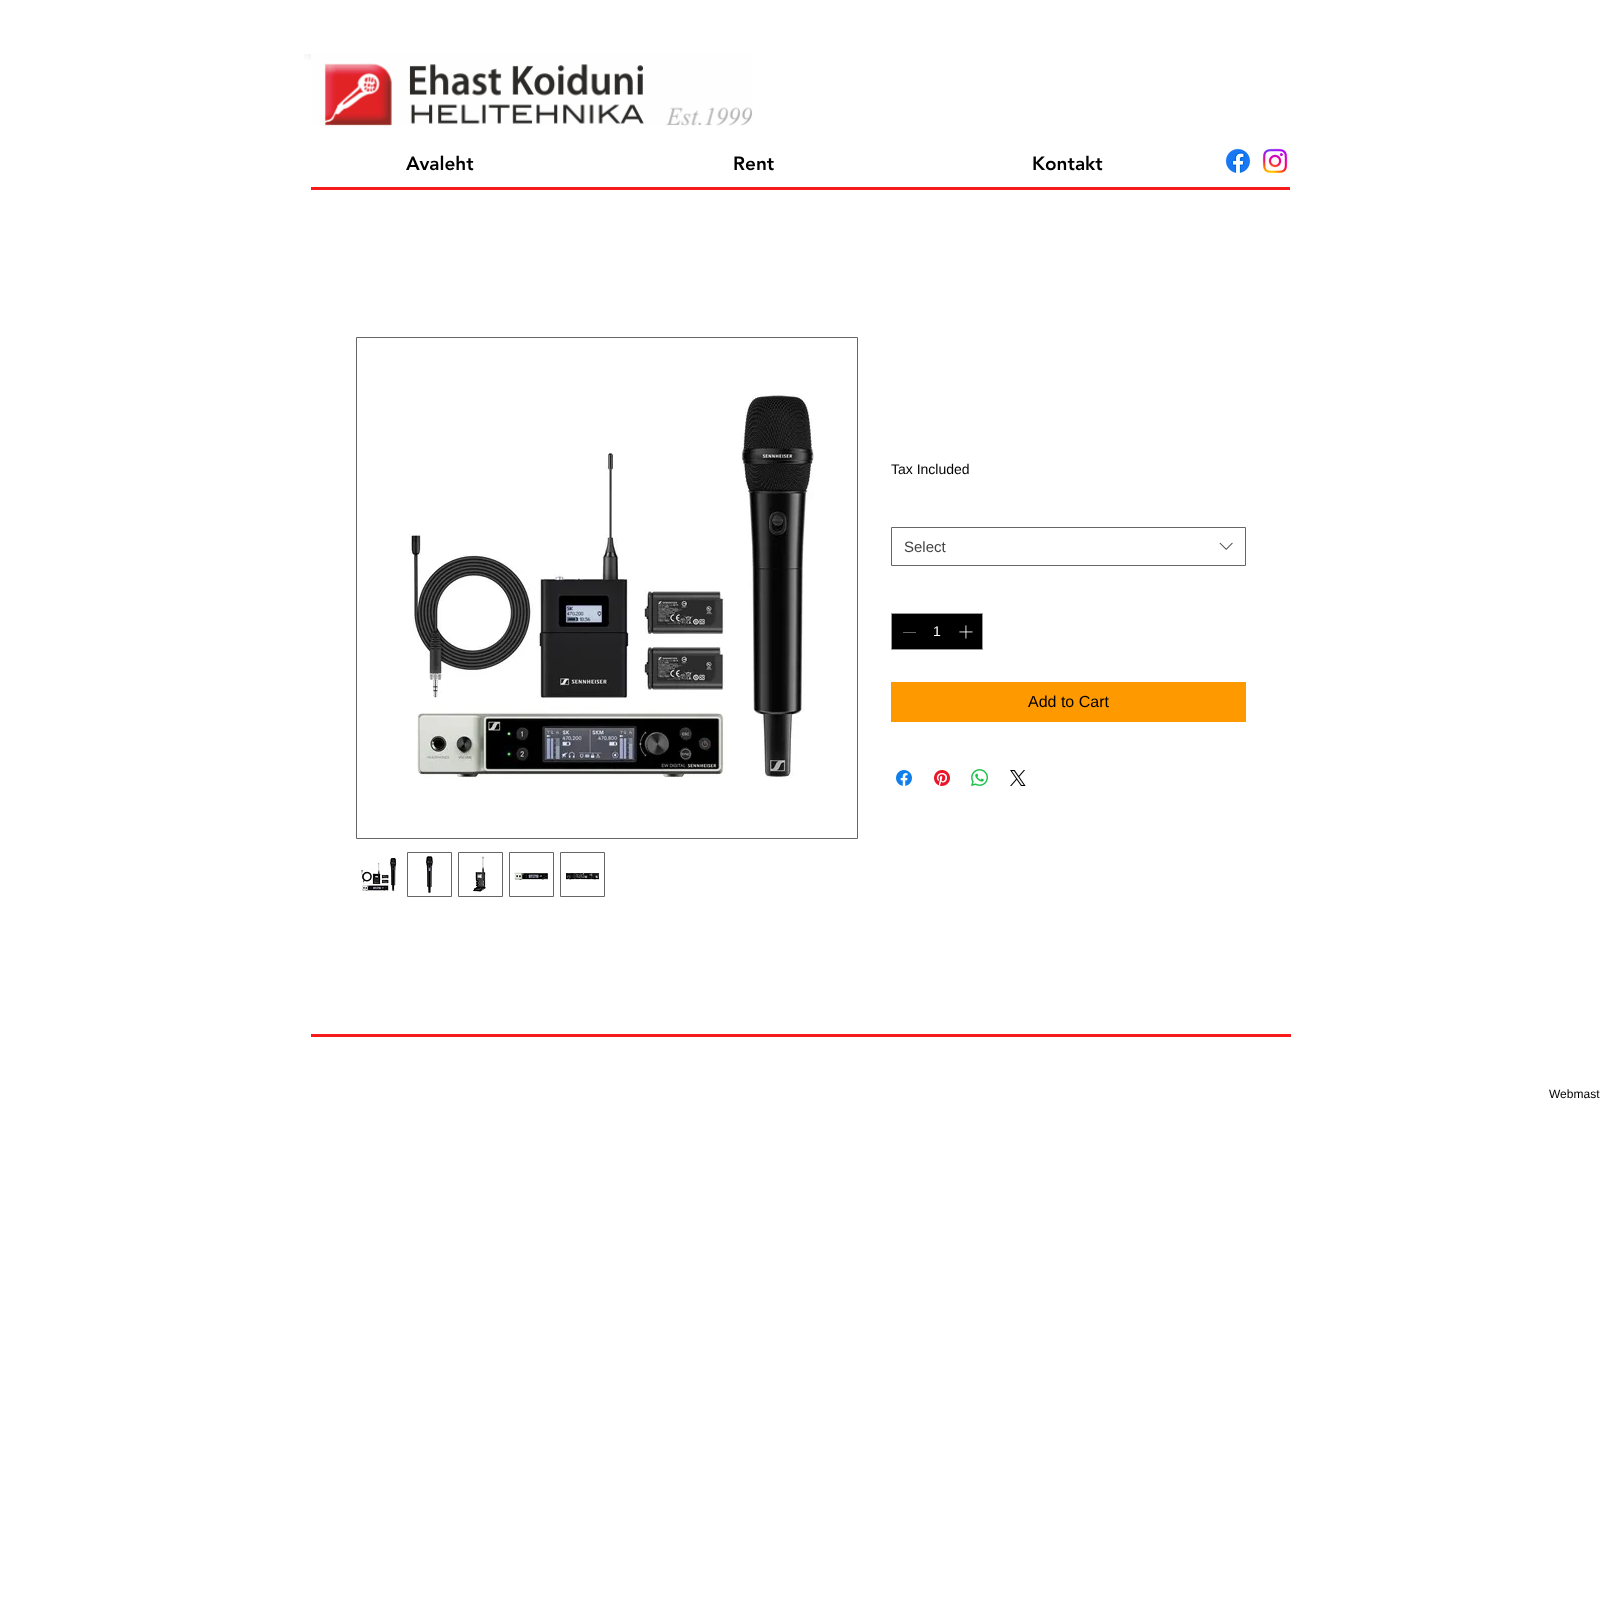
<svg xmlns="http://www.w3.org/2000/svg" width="1601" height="1601">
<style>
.a{font:900 19px 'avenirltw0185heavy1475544';fill:#000}
.b{font:14px Liberation Sans;fill:#000}
.c{font:15px Liberation Sans;fill:#444}
.d{font:14px Liberation Sans;fill:#fff}
.e{font:16px Liberation Sans;fill:#000}
.f{font:12px Liberation Sans;fill:#000}
</style>
<rect width="100%" height="100%" fill="#fff"/>
<image href="1.png" x="304" y="54" width="7" height="6"/>
<image href="2.png" x="311" y="54" width="442" height="72"/>
<image href="3.png" x="1225" y="148" width="26" height="25"/>
<image href="4.png" x="1262" y="148" width="26" height="26"/>
<path fill="#f71b1b" d="M311 187h979v3H311z"/>
<path fill="none" stroke="#666" d="M356.5 337.5h501v501H356.5z"/>
<image href="5.png" x="409" y="394" width="405" height="385"/>
<image href="6.png" x="361" y="857" width="36" height="36"/>
<path fill="none" stroke="#666" d="M407.5 852.5h44v44H407.5z"/>
<image href="7.png" x="426" y="856" width="7" height="37"/>
<path fill="none" stroke="#666" d="M458.5 852.5h44v44H458.5z"/>
<image href="8.png" x="473" y="856" width="13" height="36"/>
<path fill="none" stroke="#666" d="M509.5 852.5h44v44H509.5z"/>
<image href="9.png" x="514" y="872" width="34" height="8"/>
<path fill="none" stroke="#666" d="M560.5 852.5h44v44H560.5z"/>
<image href="10.png" x="565" y="872" width="35" height="8"/>
<path fill="none" stroke="#666" d="M891.5 527.5h354v38H891.5z"/>
<image href="11.png" x="1219" y="542" width="14" height="8"/>
<path fill="#000" stroke="#999" d="M891.5 613.5h91v36H891.5z"/>
<path fill="#646464" d="M903 632h13v1H903z"/>
<image href="12.png" x="959" y="625" width="14" height="14"/>
<path fill="#f90" d="M891 682h355v40H891z"/>
<image href="13.png" x="896" y="770" width="16" height="16"/>
<image href="14.png" x="934" y="770" width="16" height="16"/>
<image href="15.png" x="971" y="769" width="17" height="17"/>
<image href="16.png" x="1010" y="770" width="16" height="16"/>
<path fill="#f71b1b" d="M311 1034h980v3H311z"/>
<text class="a" x="406" y="170">Avaleht</text>
<text class="a" x="733" y="170">Rent</text>
<text class="a" x="1032" y="170">Kontakt</text>
<text class="b" x="891" y="474">Tax Included</text>
<text class="c" x="904" y="552">Select</text>
<text class="d" x="933" y="636">1</text>
<text class="e" x="1028" y="707">Add to Cart</text>
<text class="f" x="1549" y="1098">Webmast</text>
</svg>
